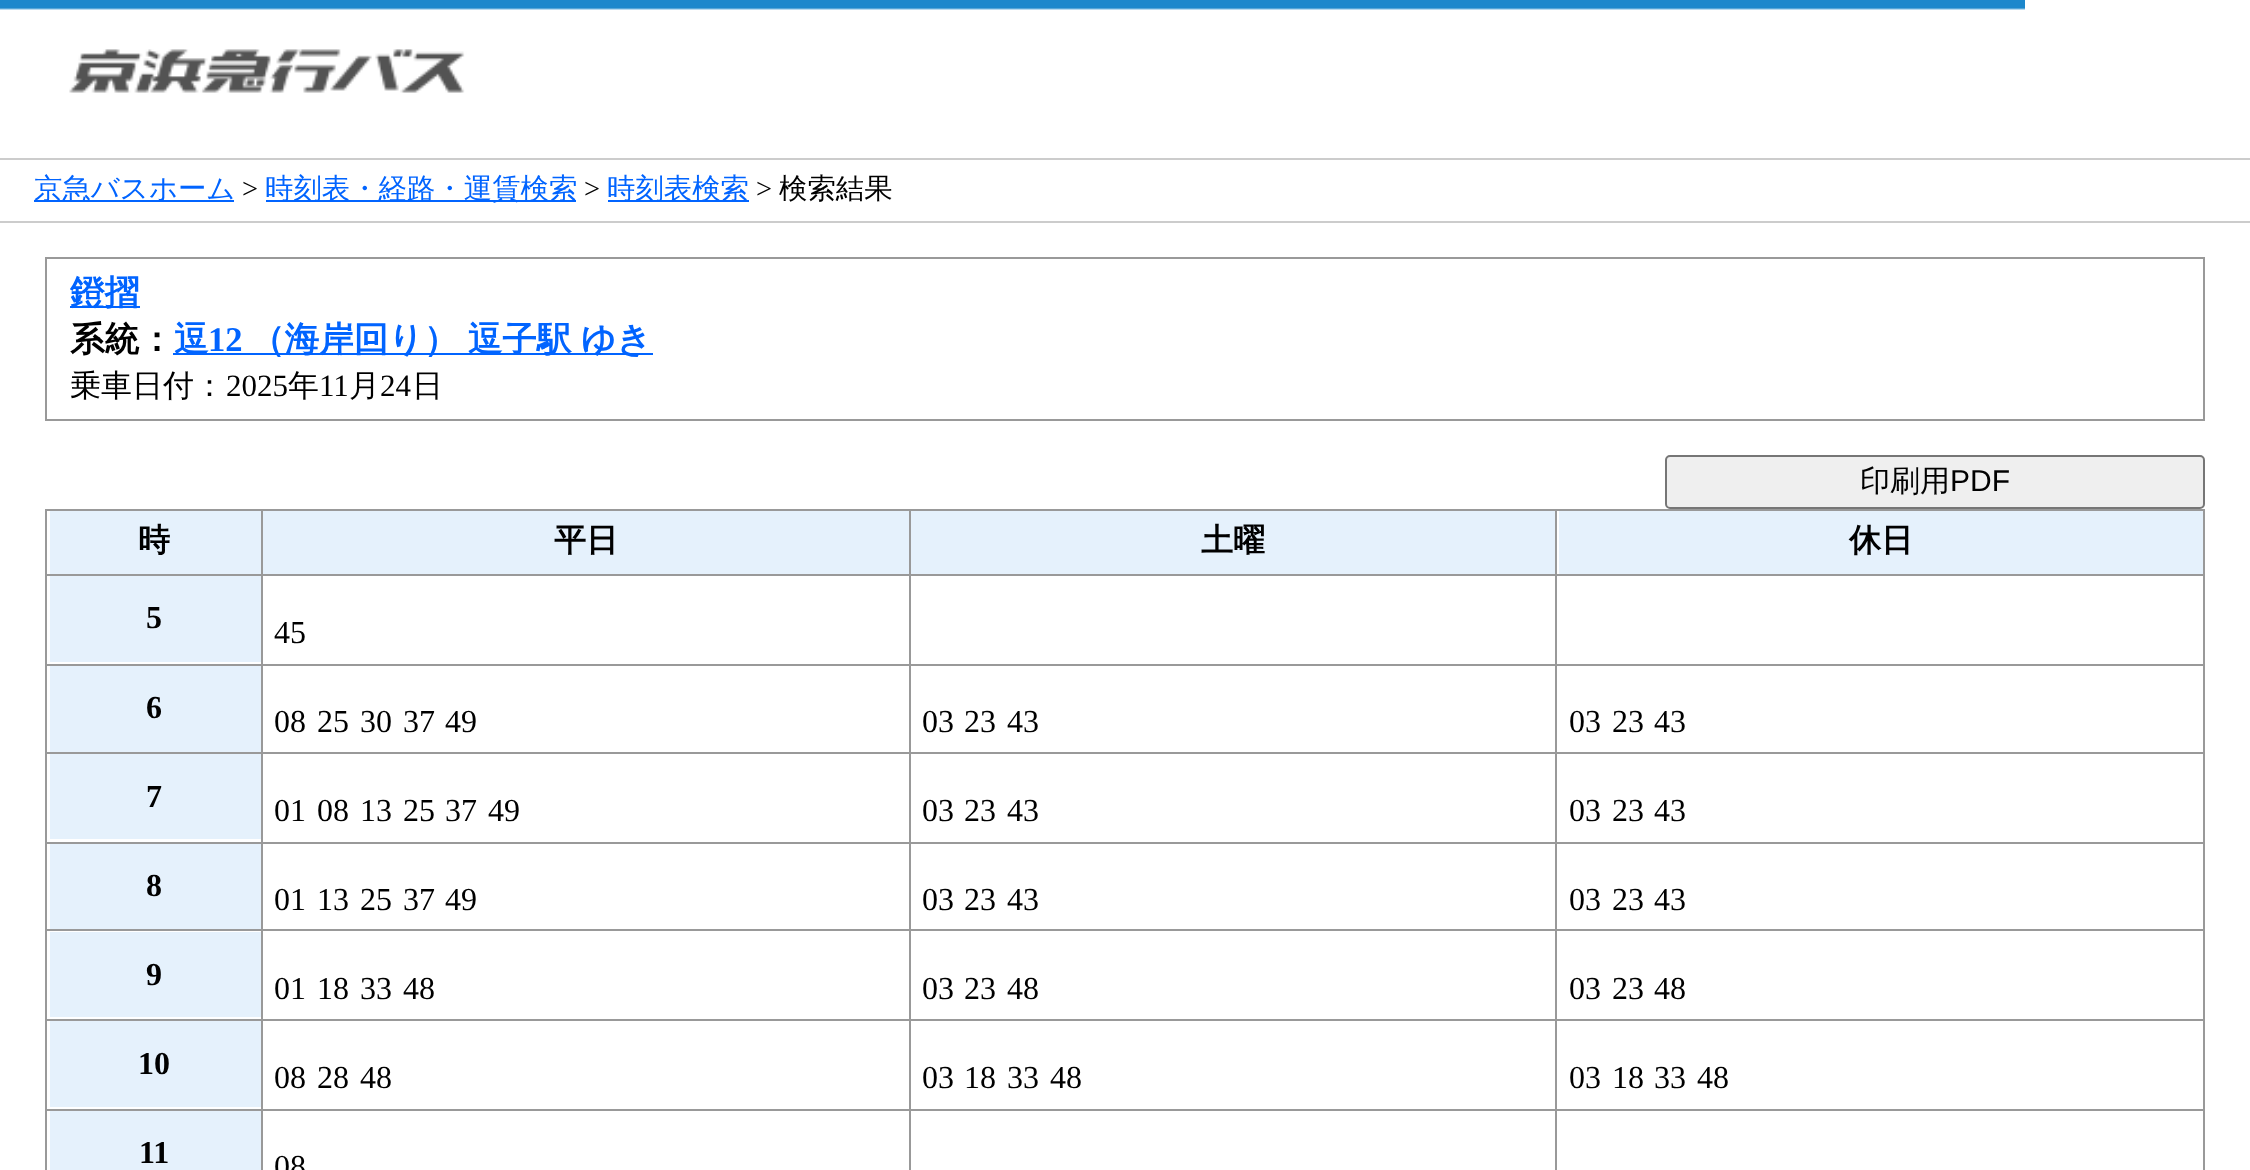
<svg xmlns="http://www.w3.org/2000/svg" width="2250" height="1170">
<style>
.a{font:500 28.4px WenQuanYi Zen Hei;fill:#0164ff}
.b{font:28.4px Liberation Serif;fill:#000}
.c{font:500 28.4px WenQuanYi Zen Hei;fill:#000}
.d{font:bold 34.6px WenQuanYi Zen Hei;fill:#0164ff}
.e{font:bold 34.6px WenQuanYi Zen Hei;fill:#000}
.f{font:bold 34.6px Liberation Serif;fill:#0164ff}
.g{font:500 31px WenQuanYi Zen Hei;fill:#000}
.h{font:31px Liberation Serif;fill:#000}
.i{font:500 30px WenQuanYi Zen Hei;fill:#000}
.j{font:30px Liberation Sans;fill:#000}
.k{font:bold 32px WenQuanYi Zen Hei;fill:#000}
.l{font:bold 32px Liberation Serif;fill:#000}
.m{font:32px Liberation Serif;fill:#000}
</style>
<rect width="100%" height="100%" fill="#fff"/>
<image href="1.png" x="0" y="0" width="2025" height="93"/>
<path fill="#ccc" d="M0 158h2250v2H0z"/>
<path fill="#ccc" d="M0 221h2250v2H0z"/>
<path fill="#0164ff" d="M34 200h200v2H34z"/>
<path fill="#0164ff" d="M266 200h310v2H266z"/>
<path fill="#0164ff" d="M608 200h141v2H608z"/>
<path fill="none" stroke="#999" stroke-width="2" d="M46 258h2158v162H46z"/>
<path fill="#0164ff" d="M70 306h70v2H70z"/>
<path fill="#0164ff" d="M173 353h480v2H173z"/>
<rect fill="#efefef" stroke="#767676" stroke-width="2" x="1666" y="456" width="538" height="52" rx="4"/>
<path fill="#999" d="M45 509h2160v2H45z"/>
<path fill="#999" d="M2203 509h2v661H2203z"/>
<path fill="#999" d="M45 509h2v661H45z"/>
<path fill="#e5f1fc" d="M50 511h211v63H50z"/>
<path fill="#999" d="M1555 1109h2v61H1555z"/>
<path fill="#999" d="M1555 1109h650v2H1555z"/>
<path fill="#999" d="M1555 1019h2v93H1555z"/>
<path fill="#999" d="M1555 1019h650v2H1555z"/>
<path fill="#999" d="M1555 929h2v93H1555z"/>
<path fill="#999" d="M1555 929h650v2H1555z"/>
<path fill="#999" d="M1555 842h2v90H1555z"/>
<path fill="#999" d="M1555 842h650v2H1555z"/>
<path fill="#999" d="M1555 752h2v92H1555z"/>
<path fill="#999" d="M1555 752h650v2H1555z"/>
<path fill="#999" d="M1555 664h2v90H1555z"/>
<path fill="#999" d="M1555 664h650v2H1555z"/>
<path fill="#999" d="M1555 574h2v92H1555z"/>
<path fill="#999" d="M1555 574h650v2H1555z"/>
<path fill="#999" d="M1555 509h2v67H1555z"/>
<path fill="#999" d="M909 1109h2v61H909z"/>
<path fill="#999" d="M909 1109h648v2H909z"/>
<path fill="#999" d="M909 1019h2v93H909z"/>
<path fill="#999" d="M909 1019h648v2H909z"/>
<path fill="#999" d="M909 929h2v93H909z"/>
<path fill="#999" d="M909 929h648v2H909z"/>
<path fill="#999" d="M909 842h2v90H909z"/>
<path fill="#999" d="M909 842h648v2H909z"/>
<path fill="#999" d="M909 752h2v92H909z"/>
<path fill="#999" d="M909 752h648v2H909z"/>
<path fill="#999" d="M909 664h2v90H909z"/>
<path fill="#999" d="M909 664h648v2H909z"/>
<path fill="#999" d="M909 574h2v92H909z"/>
<path fill="#999" d="M909 574h648v2H909z"/>
<path fill="#999" d="M909 509h2v67H909z"/>
<path fill="#999" d="M261 1109h2v61H261z"/>
<path fill="#999" d="M261 1109h650v2H261z"/>
<path fill="#999" d="M261 1019h2v93H261z"/>
<path fill="#999" d="M261 1019h650v2H261z"/>
<path fill="#999" d="M261 929h2v93H261z"/>
<path fill="#999" d="M261 929h650v2H261z"/>
<path fill="#999" d="M261 842h2v90H261z"/>
<path fill="#999" d="M261 842h650v2H261z"/>
<path fill="#999" d="M261 752h2v92H261z"/>
<path fill="#999" d="M261 752h650v2H261z"/>
<path fill="#999" d="M261 664h2v90H261z"/>
<path fill="#999" d="M261 664h650v2H261z"/>
<path fill="#999" d="M261 574h2v92H261z"/>
<path fill="#999" d="M261 574h650v2H261z"/>
<path fill="#999" d="M261 509h2v67H261z"/>
<path fill="#999" d="M45 574h218v2H45z"/>
<path fill="#e5f1fc" d="M263 511h646v63H263z"/>
<path fill="#e5f1fc" d="M911 511h644v63H911z"/>
<path fill="#e5f1fc" d="M1559 511h644v63H1559z"/>
<path fill="#e5f1fc" d="M50 576h211v86H50z"/>
<path fill="#999" d="M45 664h218v2H45z"/>
<path fill="#e5f1fc" d="M50 666h211v86H50z"/>
<path fill="#999" d="M45 752h218v2H45z"/>
<path fill="#e5f1fc" d="M50 754h211v85H50z"/>
<path fill="#999" d="M45 842h218v2H45z"/>
<path fill="#e5f1fc" d="M50 844h211v85H50z"/>
<path fill="#999" d="M45 929h218v2H45z"/>
<path fill="#e5f1fc" d="M50 932h211v85H50z"/>
<path fill="#999" d="M45 1019h218v2H45z"/>
<path fill="#e5f1fc" d="M50 1021h211v86H50z"/>
<path fill="#999" d="M45 1109h218v2H45z"/>
<path fill="#e5f1fc" d="M50 1111h211v59H50z"/>
<text class="a" x="34" y="198">京急バスホーム</text>
<text class="b" x="242" y="198">&gt;</text>
<text class="a" x="265" y="198">時刻表・経路・運賃検索</text>
<text class="b" x="584" y="198">&gt;</text>
<text class="a" x="607" y="198">時刻表検索</text>
<text class="b" x="756" y="198">&gt;</text>
<text class="c" x="779" y="198">検索結果</text>
<text class="d" x="70" y="304">鐙摺</text>
<text class="e" x="70" y="351">系統：</text>
<text class="d" x="174" y="351">逗</text>
<text class="f" x="208" y="351">12</text>
<text class="d" x="250" y="351" word-spacing="-1">（海岸回り） 逗子駅 ゆき</text>
<text class="g" x="70" y="396">乗車日付：</text>
<text class="h" x="226" y="396">2025</text>
<text class="g" x="288" y="396">年</text>
<text class="h" x="319" y="396">11</text>
<text class="g" x="349" y="396">月</text>
<text class="h" x="380" y="396">24</text>
<text class="g" x="412" y="396">日</text>
<text class="i" x="1860" y="491">印刷用</text>
<text class="j" x="1950" y="491">PDF</text>
<text class="k" x="138" y="551">時</text>
<text class="k" x="554" y="551">平日</text>
<text class="k" x="1201" y="551">土曜</text>
<text class="k" x="1849" y="551">休日</text>
<text class="l" x="146" y="628">5</text>
<text class="m" x="274" y="643">45</text>
<text class="l" x="146" y="718">6</text>
<text class="m" x="274" y="732">08</text>
<text class="m" x="317" y="732">25</text>
<text class="m" x="360" y="732">30</text>
<text class="m" x="403" y="732">37</text>
<text class="m" x="445" y="732">49</text>
<text class="m" x="922" y="732">03</text>
<text class="m" x="964" y="732">23</text>
<text class="m" x="1007" y="732">43</text>
<text class="m" x="1569" y="732">03</text>
<text class="m" x="1612" y="732">23</text>
<text class="m" x="1654" y="732">43</text>
<text class="l" x="146" y="807">7</text>
<text class="m" x="274" y="821">01</text>
<text class="m" x="317" y="821">08</text>
<text class="m" x="360" y="821">13</text>
<text class="m" x="403" y="821">25</text>
<text class="m" x="445" y="821">37</text>
<text class="m" x="488" y="821">49</text>
<text class="m" x="922" y="821">03</text>
<text class="m" x="964" y="821">23</text>
<text class="m" x="1007" y="821">43</text>
<text class="m" x="1569" y="821">03</text>
<text class="m" x="1612" y="821">23</text>
<text class="m" x="1654" y="821">43</text>
<text class="l" x="146" y="896">8</text>
<text class="m" x="274" y="910">01</text>
<text class="m" x="317" y="910">13</text>
<text class="m" x="360" y="910">25</text>
<text class="m" x="403" y="910">37</text>
<text class="m" x="445" y="910">49</text>
<text class="m" x="922" y="910">03</text>
<text class="m" x="964" y="910">23</text>
<text class="m" x="1007" y="910">43</text>
<text class="m" x="1569" y="910">03</text>
<text class="m" x="1612" y="910">23</text>
<text class="m" x="1654" y="910">43</text>
<text class="l" x="146" y="985">9</text>
<text class="m" x="274" y="999">01</text>
<text class="m" x="317" y="999">18</text>
<text class="m" x="360" y="999">33</text>
<text class="m" x="403" y="999">48</text>
<text class="m" x="922" y="999">03</text>
<text class="m" x="964" y="999">23</text>
<text class="m" x="1007" y="999">48</text>
<text class="m" x="1569" y="999">03</text>
<text class="m" x="1612" y="999">23</text>
<text class="m" x="1654" y="999">48</text>
<text class="l" x="138" y="1074">10</text>
<text class="m" x="274" y="1088">08</text>
<text class="m" x="317" y="1088">28</text>
<text class="m" x="360" y="1088">48</text>
<text class="m" x="922" y="1088">03</text>
<text class="m" x="964" y="1088">18</text>
<text class="m" x="1007" y="1088">33</text>
<text class="m" x="1050" y="1088">48</text>
<text class="m" x="1569" y="1088">03</text>
<text class="m" x="1612" y="1088">18</text>
<text class="m" x="1654" y="1088">33</text>
<text class="m" x="1697" y="1088">48</text>
<text class="l" x="139" y="1163">11</text>
<text class="m" x="274" y="1177">08</text>
</svg>
